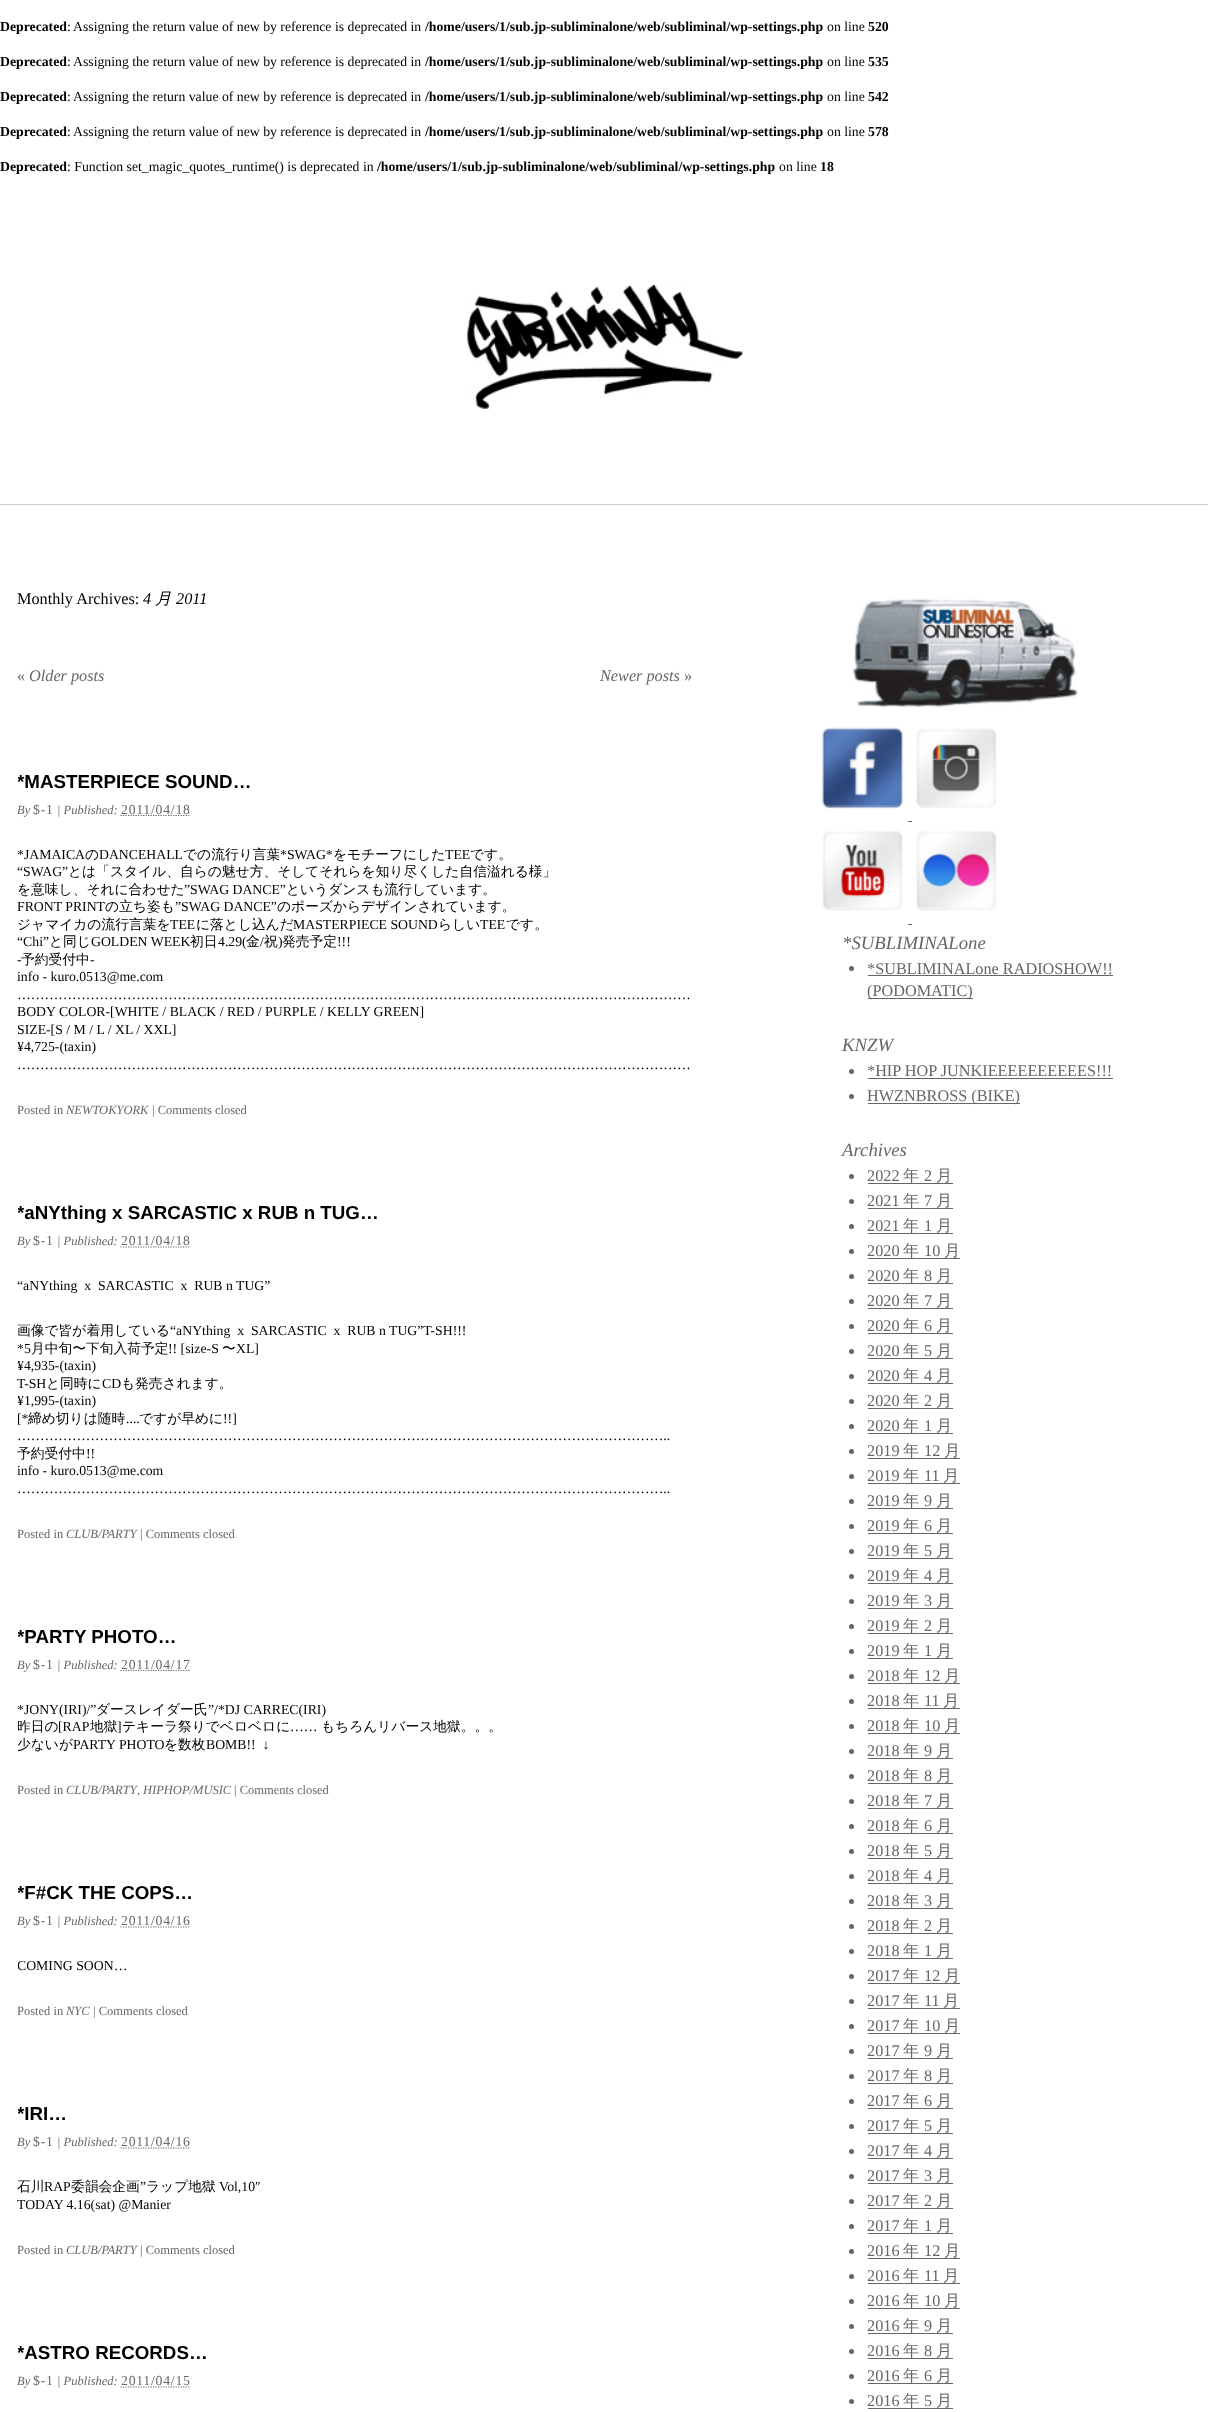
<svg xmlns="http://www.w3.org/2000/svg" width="1208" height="2412">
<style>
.a{font:bold 13.75px Liberation Serif;fill:#000}
.b{font:13.75px Liberation Serif;fill:#000}
.c{font:16.25px Liberation Serif;fill:#000}
.d{font:italic 16.25px Liberation Serif;fill:#000}
.e{font:italic 500 16.25px WenQuanYi Zen Hei;fill:#000}
.f{font:16.25px Liberation Serif;fill:#666}
.g{font:italic 16.25px Liberation Serif;fill:#666}
.h{font:bold 18.75px Liberation Sans;fill:#000}
.i{font:italic 12.5px Liberation Serif;fill:#666}
.j{font:13.75px Liberation Serif;letter-spacing:0.75px;fill:#666}
.k{font:500 13.75px WenQuanYi Zen Hei;fill:#000}
.l{font:12.5px Liberation Serif;fill:#666}
.m{font:italic 18.75px Liberation Serif;fill:#666}
.n{font:500 16.25px WenQuanYi Zen Hei;fill:#666}
</style>
<defs>
<clipPath id="clip1"><path d="M18 588h675v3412H18z"/></clipPath>
</defs>
<rect width="100%" height="100%" fill="#fff"/>
<image href="1.png" x="467" y="285" width="276" height="124"/>
<path fill="#ccc" d="M0 504h1208v1H0z"/>
<path fill="none" stroke="#666" stroke-width="1.2" stroke-dasharray="1.25 1.25" d="M120.5 815.5h69"/>
<path fill="none" stroke="#666" stroke-width="1.2" stroke-dasharray="1.25 1.25" d="M120.5 1247h69"/>
<path fill="none" stroke="#666" stroke-width="1.2" stroke-dasharray="1.25 1.25" d="M120.5 1670.5h69"/>
<path fill="none" stroke="#666" stroke-width="1.2" stroke-dasharray="1.25 1.25" d="M120.5 1927h69"/>
<path fill="none" stroke="#666" stroke-width="1.2" stroke-dasharray="1.25 1.25" d="M120.5 2148h69"/>
<path fill="none" stroke="#666" stroke-width="1.2" stroke-dasharray="1.25 1.25" d="M120.5 2387h69"/>
<image href="2.png" x="852" y="598" width="226" height="110"/>
<image href="3.png" x="822" y="727" width="81" height="82"/>
<image href="4.png" x="916" y="728" width="81" height="80"/>
<path fill="#666" d="M908 821h4v1H908z"/>
<image href="5.png" x="822" y="831" width="81" height="80"/>
<image href="6.png" x="916" y="831" width="81" height="80"/>
<path fill="#666" d="M908 924h4v1H908z"/>
<circle fill="#666" cx="851.5" cy="968.5" r="2.5"/>
<path fill="#666" d="M868 975h245v1H868z"/>
<path fill="#666" d="M868 998h105v1H868z"/>
<circle fill="#666" cx="851.5" cy="1071.5" r="2.5"/>
<path fill="#666" d="M868 1078h245v1H868z"/>
<circle fill="#666" cx="851.5" cy="1096.5" r="2.5"/>
<path fill="#666" d="M868 1103h152v1H868z"/>
<circle fill="#666" cx="851.5" cy="1176.5" r="2.5"/>
<path fill="#666" d="M868 1183h85v1H868z"/>
<circle fill="#666" cx="851.5" cy="1201.5" r="2.5"/>
<path fill="#666" d="M868 1208h85v1H868z"/>
<circle fill="#666" cx="851.5" cy="1226.5" r="2.5"/>
<path fill="#666" d="M868 1233h85v1H868z"/>
<circle fill="#666" cx="851.5" cy="1251.5" r="2.5"/>
<path fill="#666" d="M868 1258h92v1H868z"/>
<circle fill="#666" cx="851.5" cy="1276.5" r="2.5"/>
<path fill="#666" d="M868 1283h85v1H868z"/>
<circle fill="#666" cx="851.5" cy="1301.5" r="2.5"/>
<path fill="#666" d="M868 1308h85v1H868z"/>
<circle fill="#666" cx="851.5" cy="1326.5" r="2.5"/>
<path fill="#666" d="M868 1333h85v1H868z"/>
<circle fill="#666" cx="851.5" cy="1351.5" r="2.5"/>
<path fill="#666" d="M868 1358h85v1H868z"/>
<circle fill="#666" cx="851.5" cy="1376.5" r="2.5"/>
<path fill="#666" d="M868 1383h85v1H868z"/>
<circle fill="#666" cx="851.5" cy="1401.5" r="2.5"/>
<path fill="#666" d="M868 1408h85v1H868z"/>
<circle fill="#666" cx="851.5" cy="1426.5" r="2.5"/>
<path fill="#666" d="M868 1433h85v1H868z"/>
<circle fill="#666" cx="851.5" cy="1451.5" r="2.5"/>
<path fill="#666" d="M868 1458h92v1H868z"/>
<circle fill="#666" cx="851.5" cy="1476.5" r="2.5"/>
<path fill="#666" d="M868 1483h92v1H868z"/>
<circle fill="#666" cx="851.5" cy="1501.5" r="2.5"/>
<path fill="#666" d="M868 1508h85v1H868z"/>
<circle fill="#666" cx="851.5" cy="1526.5" r="2.5"/>
<path fill="#666" d="M868 1533h85v1H868z"/>
<circle fill="#666" cx="851.5" cy="1551.5" r="2.5"/>
<path fill="#666" d="M868 1558h85v1H868z"/>
<circle fill="#666" cx="851.5" cy="1576.5" r="2.5"/>
<path fill="#666" d="M868 1583h85v1H868z"/>
<circle fill="#666" cx="851.5" cy="1601.5" r="2.5"/>
<path fill="#666" d="M868 1608h85v1H868z"/>
<circle fill="#666" cx="851.5" cy="1626.5" r="2.5"/>
<path fill="#666" d="M868 1633h85v1H868z"/>
<circle fill="#666" cx="851.5" cy="1651.5" r="2.5"/>
<path fill="#666" d="M868 1658h85v1H868z"/>
<circle fill="#666" cx="851.5" cy="1676.5" r="2.5"/>
<path fill="#666" d="M868 1683h92v1H868z"/>
<circle fill="#666" cx="851.5" cy="1701.5" r="2.5"/>
<path fill="#666" d="M868 1708h92v1H868z"/>
<circle fill="#666" cx="851.5" cy="1726.5" r="2.5"/>
<path fill="#666" d="M868 1733h92v1H868z"/>
<circle fill="#666" cx="851.5" cy="1751.5" r="2.5"/>
<path fill="#666" d="M868 1758h85v1H868z"/>
<circle fill="#666" cx="851.5" cy="1776.5" r="2.5"/>
<path fill="#666" d="M868 1783h85v1H868z"/>
<circle fill="#666" cx="851.5" cy="1801.5" r="2.5"/>
<path fill="#666" d="M868 1808h85v1H868z"/>
<circle fill="#666" cx="851.5" cy="1826.5" r="2.5"/>
<path fill="#666" d="M868 1833h85v1H868z"/>
<circle fill="#666" cx="851.5" cy="1851.5" r="2.5"/>
<path fill="#666" d="M868 1858h85v1H868z"/>
<circle fill="#666" cx="851.5" cy="1876.5" r="2.5"/>
<path fill="#666" d="M868 1883h85v1H868z"/>
<circle fill="#666" cx="851.5" cy="1901.5" r="2.5"/>
<path fill="#666" d="M868 1908h85v1H868z"/>
<circle fill="#666" cx="851.5" cy="1926.5" r="2.5"/>
<path fill="#666" d="M868 1933h85v1H868z"/>
<circle fill="#666" cx="851.5" cy="1951.5" r="2.5"/>
<path fill="#666" d="M868 1958h85v1H868z"/>
<circle fill="#666" cx="851.5" cy="1976.5" r="2.5"/>
<path fill="#666" d="M868 1983h92v1H868z"/>
<circle fill="#666" cx="851.5" cy="2001.5" r="2.5"/>
<path fill="#666" d="M868 2008h92v1H868z"/>
<circle fill="#666" cx="851.5" cy="2026.5" r="2.5"/>
<path fill="#666" d="M868 2033h92v1H868z"/>
<circle fill="#666" cx="851.5" cy="2051.5" r="2.5"/>
<path fill="#666" d="M868 2058h85v1H868z"/>
<circle fill="#666" cx="851.5" cy="2076.5" r="2.5"/>
<path fill="#666" d="M868 2083h85v1H868z"/>
<circle fill="#666" cx="851.5" cy="2101.5" r="2.5"/>
<path fill="#666" d="M868 2108h85v1H868z"/>
<circle fill="#666" cx="851.5" cy="2126.5" r="2.5"/>
<path fill="#666" d="M868 2133h85v1H868z"/>
<circle fill="#666" cx="851.5" cy="2151.5" r="2.5"/>
<path fill="#666" d="M868 2158h85v1H868z"/>
<circle fill="#666" cx="851.5" cy="2176.5" r="2.5"/>
<path fill="#666" d="M868 2183h85v1H868z"/>
<circle fill="#666" cx="851.5" cy="2201.5" r="2.5"/>
<path fill="#666" d="M868 2208h85v1H868z"/>
<circle fill="#666" cx="851.5" cy="2226.5" r="2.5"/>
<path fill="#666" d="M868 2233h85v1H868z"/>
<circle fill="#666" cx="851.5" cy="2251.5" r="2.5"/>
<path fill="#666" d="M868 2258h92v1H868z"/>
<circle fill="#666" cx="851.5" cy="2276.5" r="2.5"/>
<path fill="#666" d="M868 2283h92v1H868z"/>
<circle fill="#666" cx="851.5" cy="2301.5" r="2.5"/>
<path fill="#666" d="M868 2308h92v1H868z"/>
<circle fill="#666" cx="851.5" cy="2326.5" r="2.5"/>
<path fill="#666" d="M868 2333h85v1H868z"/>
<circle fill="#666" cx="851.5" cy="2351.5" r="2.5"/>
<path fill="#666" d="M868 2358h85v1H868z"/>
<circle fill="#666" cx="851.5" cy="2376.5" r="2.5"/>
<path fill="#666" d="M868 2383h85v1H868z"/>
<circle fill="#666" cx="851.5" cy="2401.5" r="2.5"/>
<path fill="#666" d="M868 2408h85v1H868z"/>
<text class="a" x="0" y="31">Deprecated</text>
<text class="b" x="67" y="31">:</text>
<text class="b" x="73" y="31">Assigning the return value of new by reference is deprecated in</text>
<text class="a" x="425" y="31">/home/users/1/sub.jp-subliminalone/web/subliminal/wp-settings.php</text>
<text class="b" x="827" y="31">on line</text>
<text class="a" x="868" y="31">520</text>
<text class="a" x="0" y="66">Deprecated</text>
<text class="b" x="67" y="66">:</text>
<text class="b" x="73" y="66">Assigning the return value of new by reference is deprecated in</text>
<text class="a" x="425" y="66">/home/users/1/sub.jp-subliminalone/web/subliminal/wp-settings.php</text>
<text class="b" x="827" y="66">on line</text>
<text class="a" x="868" y="66">535</text>
<text class="a" x="0" y="101">Deprecated</text>
<text class="b" x="67" y="101">:</text>
<text class="b" x="73" y="101">Assigning the return value of new by reference is deprecated in</text>
<text class="a" x="425" y="101">/home/users/1/sub.jp-subliminalone/web/subliminal/wp-settings.php</text>
<text class="b" x="827" y="101">on line</text>
<text class="a" x="868" y="101">542</text>
<text class="a" x="0" y="136">Deprecated</text>
<text class="b" x="67" y="136">:</text>
<text class="b" x="73" y="136">Assigning the return value of new by reference is deprecated in</text>
<text class="a" x="425" y="136">/home/users/1/sub.jp-subliminalone/web/subliminal/wp-settings.php</text>
<text class="b" x="827" y="136">on line</text>
<text class="a" x="868" y="136">578</text>
<text class="a" x="0" y="171">Deprecated</text>
<text class="b" x="67" y="171">: Function set_magic_quotes_runtime() is deprecated in</text>
<text class="a" x="377" y="171">/home/users/1/sub.jp-subliminalone/web/subliminal/wp-settings.php</text>
<text class="b" x="779" y="171">on line</text>
<text class="a" x="820" y="171">18</text>
<text class="c" x="17" y="604">Monthly Archives:</text>
<text class="d" x="143" y="604">4</text>
<text class="e" x="155" y="604">月</text>
<text class="d" x="176" y="604">2011</text>
<text class="f" x="17" y="681">«</text>
<text class="g" x="29" y="681">Older posts</text>
<text class="g" x="600" y="681">Newer posts</text>
<text class="f" x="684" y="681">»</text>
<g clip-path="url(#clip1)">
<text class="h" x="17" y="788">*MASTERPIECE SOUND…</text>
</g>
<text class="i" x="17" y="814">By</text>
<text class="j" x="33" y="814">$-1</text>
<text class="i" x="57" y="814">| Published:</text>
<text class="j" x="121" y="814">2011/04/18</text>
<text class="b" x="17" y="859">*JAMAICA</text>
<text class="k" x="85" y="859">の</text>
<text class="b" x="99" y="859">DANCEHALL</text>
<text class="k" x="183" y="859">での流行り言葉</text>
<text class="b" x="280" y="859">*SWAG*</text>
<text class="k" x="333" y="859">をモチーフにした</text>
<text class="b" x="445" y="859">TEE</text>
<text class="k" x="470" y="859">です。</text>
<text class="b" x="17" y="876">“SWAG”</text>
<text class="k" x="68" y="876">とは「スタイル、自らの魅せ方、そしてそれらを知り尽くした自信溢れる様」</text>
<text class="k" x="17" y="894">を意味し、それに合わせた</text>
<text class="b" x="184" y="894">”SWAG DANCE”</text>
<text class="k" x="286" y="894">というダンスも流行しています。</text>
<text class="b" x="17" y="911">FRONT PRINT</text>
<text class="k" x="105" y="911">の立ち姿も</text>
<text class="b" x="175" y="911">”SWAG DANCE”</text>
<text class="k" x="277" y="911">のポーズからデザインされています。</text>
<text class="k" x="17" y="929">ジャマイカの流行言葉を</text>
<text class="b" x="170" y="929">TEE</text>
<text class="k" x="196" y="929">に落とし込んだ</text>
<text class="b" x="293" y="929">MASTERPIECE SOUND</text>
<text class="k" x="438" y="929">らしい</text>
<text class="b" x="480" y="929">TEE</text>
<text class="k" x="506" y="929">です。</text>
<text class="b" x="17" y="946">“Chi”</text>
<text class="k" x="49" y="946">と同じ</text>
<text class="b" x="91" y="946">GOLDEN WEEK</text>
<text class="k" x="190" y="946">初日</text>
<text class="b" x="218" y="946">4.29(</text>
<text class="k" x="246" y="946">金</text>
<text class="b" x="260" y="946">/</text>
<text class="k" x="264" y="946">祝</text>
<text class="b" x="278" y="946">)</text>
<text class="k" x="282" y="946">発売予定</text>
<text class="b" x="337" y="946">!!!</text>
<text class="b" x="17" y="964">-</text>
<text class="k" x="21" y="964">予約受付中</text>
<text class="b" x="90" y="964">-</text>
<text class="b" x="17" y="981">info - kuro.0513@me.com</text>
<text class="b" x="17" y="999">…………………………………………………………………………………………………………………………………</text>
<text class="b" x="17" y="1016">BODY COLOR-[WHITE / BLACK / RED / PURPLE / KELLY GREEN]</text>
<g clip-path="url(#clip1)">
<text class="b" x="17" y="1034">SIZE-[S / M / L / XL / XXL]</text>
<text class="b" x="17" y="1051">¥4,725-(taxin)</text>
</g>
<text class="b" x="17" y="1069">…………………………………………………………………………………………………………………………………</text>
<g clip-path="url(#clip1)">
<text class="l" x="17" y="1114">Posted in</text>
</g>
<text class="i" x="66" y="1114">NEWTOKYORK</text>
<text class="l" x="152" y="1114">| Comments closed</text>
<g clip-path="url(#clip1)">
<text class="h" x="17" y="1219">*aNYthing</text>
</g>
<text class="h" x="112" y="1219">x SARCASTIC x RUB n TUG…</text>
<text class="i" x="17" y="1245">By</text>
<text class="j" x="33" y="1245">$-1</text>
<text class="i" x="57" y="1245">| Published:</text>
<text class="j" x="121" y="1245">2011/04/18</text>
<text class="b" xml:space="preserve" x="17" y="1290">“aNYthing  x  SARCASTIC  x  RUB n TUG”</text>
<text class="k" x="17" y="1335">画像で皆が着用している</text>
<text class="b" xml:space="preserve" x="170" y="1335">“aNYthing  x  SARCASTIC  x  RUB n TUG”T-SH!!!</text>
<text class="b" x="17" y="1353">*5</text>
<text class="k" x="31" y="1353">月中旬〜下旬入荷予定</text>
<text class="b" x="168" y="1353">!! [size-S</text>
<text class="k" x="222" y="1353">〜</text>
<text class="b" x="236" y="1353">XL]</text>
<g clip-path="url(#clip1)">
<text class="b" x="17" y="1370">¥4,935-(taxin)</text>
</g>
<text class="b" x="17" y="1388">T-SH</text>
<text class="k" x="46" y="1388">と同時に</text>
<text class="b" x="102" y="1388">CD</text>
<text class="k" x="121" y="1388">も発売されます。</text>
<g clip-path="url(#clip1)">
<text class="b" x="17" y="1405">¥1,995-(taxin)</text>
<text class="b" x="17" y="1423">[*</text>
</g>
<text class="k" x="28" y="1423">締め切りは随時</text>
<text class="b" x="126" y="1423">....</text>
<text class="k" x="139" y="1423">ですが早めに</text>
<text class="b" x="223" y="1423">!!]</text>
<text class="b" x="17" y="1440">……………………………………………………………………………………………………………………………..</text>
<text class="k" x="17" y="1458">予約受付中</text>
<text class="b" x="86" y="1458">!!</text>
<text class="b" x="17" y="1475">info - kuro.0513@me.com</text>
<text class="b" x="17" y="1493">……………………………………………………………………………………………………………………………..</text>
<g clip-path="url(#clip1)">
<text class="l" x="17" y="1538">Posted in</text>
</g>
<text class="i" x="66" y="1538">CLUB/PARTY</text>
<text class="l" x="140" y="1538">| Comments closed</text>
<g clip-path="url(#clip1)">
<text class="h" x="17" y="1643">*PARTY PHOTO…</text>
</g>
<text class="i" x="17" y="1669">By</text>
<text class="j" x="33" y="1669">$-1</text>
<text class="i" x="57" y="1669">| Published:</text>
<text class="j" x="121" y="1669">2011/04/17</text>
<text class="b" x="17" y="1714">*JONY(IRI)/”</text>
<text class="k" x="96" y="1714">ダースレイダー氏</text>
<text class="b" x="208" y="1714">”/*DJ CARREC(IRI)</text>
<g clip-path="url(#clip1)">
<text class="k" x="17" y="1731">昨日の</text>
</g>
<text class="b" x="58" y="1731">[RAP</text>
<text class="k" x="90" y="1731">地獄</text>
<text class="b" x="117" y="1731">]</text>
<text class="k" x="122" y="1731">テキーラ祭りでベロベロに</text>
<text class="b" x="290" y="1731">……</text>
<text class="k" x="321" y="1731">もちろんリバース地獄。。。</text>
<g clip-path="url(#clip1)">
<text class="k" x="17" y="1749">少ないが</text>
</g>
<text class="b" x="73" y="1749">PARTY PHOTO</text>
<text class="k" x="164" y="1749">を数枚</text>
<text class="b" xml:space="preserve" x="206" y="1749">BOMB!!  ↓</text>
<g clip-path="url(#clip1)">
<text class="l" x="17" y="1794">Posted in</text>
</g>
<text class="i" x="66" y="1794">CLUB/PARTY</text>
<text class="l" x="137" y="1794">,</text>
<text class="i" x="143" y="1794">HIPHOP/MUSIC</text>
<text class="l" x="234" y="1794">| Comments closed</text>
<g clip-path="url(#clip1)">
<text class="h" x="17" y="1899">*F#CK THE COPS…</text>
</g>
<text class="i" x="17" y="1925">By</text>
<text class="j" x="33" y="1925">$-1</text>
<text class="i" x="57" y="1925">| Published:</text>
<text class="j" x="121" y="1925">2011/04/16</text>
<g clip-path="url(#clip1)">
<text class="b" x="17" y="1970">COMING SOON…</text>
<text class="l" x="17" y="2015">Posted in</text>
</g>
<text class="i" x="66" y="2015">NYC</text>
<text class="l" x="93" y="2015">| Comments closed</text>
<g clip-path="url(#clip1)">
<text class="h" x="17" y="2120">*IRI…</text>
</g>
<text class="i" x="17" y="2146">By</text>
<text class="j" x="33" y="2146">$-1</text>
<text class="i" x="57" y="2146">| Published:</text>
<text class="j" x="121" y="2146">2011/04/16</text>
<text class="k" x="17" y="2191">石川</text>
<text class="b" x="44" y="2191">RAP</text>
<text class="k" x="71" y="2191">委韻会企画</text>
<text class="b" x="140" y="2191">”</text>
<text class="k" x="146" y="2191">ラップ地獄</text>
<text class="b" x="219" y="2191">Vol,10″</text>
<text class="b" x="17" y="2209">TODAY 4.16(sat) @Manier</text>
<g clip-path="url(#clip1)">
<text class="l" x="17" y="2254">Posted in</text>
</g>
<text class="i" x="66" y="2254">CLUB/PARTY</text>
<text class="l" x="140" y="2254">| Comments closed</text>
<g clip-path="url(#clip1)">
<text class="h" x="17" y="2359">*ASTRO RECORDS…</text>
</g>
<text class="i" x="17" y="2385">By</text>
<text class="j" x="33" y="2385">$-1</text>
<text class="i" x="57" y="2385">| Published:</text>
<text class="j" x="121" y="2385">2011/04/15</text>
<text class="m" x="842" y="949">*SUBLIMINALone</text>
<text class="f" x="867" y="974">*SUBLIMINALone RADIOSHOW!!</text>
<text class="f" x="867" y="996">(PODOMATIC)</text>
<text class="m" x="842" y="1051">KNZW</text>
<text class="f" x="867" y="1076">*HIP HOP JUNKIEEEEEEEEEES!!!</text>
<text class="f" x="867" y="1101">HWZNBROSS (BIKE)</text>
<text class="m" x="842" y="1156">Archives</text>
<text class="f" x="867" y="1181">2022</text>
<text class="n" x="903" y="1181">年</text>
<text class="f" x="924" y="1181">2</text>
<text class="n" x="936" y="1181">月</text>
<text class="f" x="867" y="1206">2021</text>
<text class="n" x="903" y="1206">年</text>
<text class="f" x="924" y="1206">7</text>
<text class="n" x="936" y="1206">月</text>
<text class="f" x="867" y="1231">2021</text>
<text class="n" x="903" y="1231">年</text>
<text class="f" x="924" y="1231">1</text>
<text class="n" x="936" y="1231">月</text>
<text class="f" x="867" y="1256">2020</text>
<text class="n" x="903" y="1256">年</text>
<text class="f" x="924" y="1256">10</text>
<text class="n" x="944" y="1256">月</text>
<text class="f" x="867" y="1281">2020</text>
<text class="n" x="903" y="1281">年</text>
<text class="f" x="924" y="1281">8</text>
<text class="n" x="936" y="1281">月</text>
<text class="f" x="867" y="1306">2020</text>
<text class="n" x="903" y="1306">年</text>
<text class="f" x="924" y="1306">7</text>
<text class="n" x="936" y="1306">月</text>
<text class="f" x="867" y="1331">2020</text>
<text class="n" x="903" y="1331">年</text>
<text class="f" x="924" y="1331">6</text>
<text class="n" x="936" y="1331">月</text>
<text class="f" x="867" y="1356">2020</text>
<text class="n" x="903" y="1356">年</text>
<text class="f" x="924" y="1356">5</text>
<text class="n" x="936" y="1356">月</text>
<text class="f" x="867" y="1381">2020</text>
<text class="n" x="903" y="1381">年</text>
<text class="f" x="924" y="1381">4</text>
<text class="n" x="936" y="1381">月</text>
<text class="f" x="867" y="1406">2020</text>
<text class="n" x="903" y="1406">年</text>
<text class="f" x="924" y="1406">2</text>
<text class="n" x="936" y="1406">月</text>
<text class="f" x="867" y="1431">2020</text>
<text class="n" x="903" y="1431">年</text>
<text class="f" x="924" y="1431">1</text>
<text class="n" x="936" y="1431">月</text>
<text class="f" x="867" y="1456">2019</text>
<text class="n" x="903" y="1456">年</text>
<text class="f" x="924" y="1456">12</text>
<text class="n" x="944" y="1456">月</text>
<text class="f" x="867" y="1481">2019</text>
<text class="n" x="903" y="1481">年</text>
<text class="f" x="924" y="1481">11</text>
<text class="n" x="943" y="1481">月</text>
<text class="f" x="867" y="1506">2019</text>
<text class="n" x="903" y="1506">年</text>
<text class="f" x="924" y="1506">9</text>
<text class="n" x="936" y="1506">月</text>
<text class="f" x="867" y="1531">2019</text>
<text class="n" x="903" y="1531">年</text>
<text class="f" x="924" y="1531">6</text>
<text class="n" x="936" y="1531">月</text>
<text class="f" x="867" y="1556">2019</text>
<text class="n" x="903" y="1556">年</text>
<text class="f" x="924" y="1556">5</text>
<text class="n" x="936" y="1556">月</text>
<text class="f" x="867" y="1581">2019</text>
<text class="n" x="903" y="1581">年</text>
<text class="f" x="924" y="1581">4</text>
<text class="n" x="936" y="1581">月</text>
<text class="f" x="867" y="1606">2019</text>
<text class="n" x="903" y="1606">年</text>
<text class="f" x="924" y="1606">3</text>
<text class="n" x="936" y="1606">月</text>
<text class="f" x="867" y="1631">2019</text>
<text class="n" x="903" y="1631">年</text>
<text class="f" x="924" y="1631">2</text>
<text class="n" x="936" y="1631">月</text>
<text class="f" x="867" y="1656">2019</text>
<text class="n" x="903" y="1656">年</text>
<text class="f" x="924" y="1656">1</text>
<text class="n" x="936" y="1656">月</text>
<text class="f" x="867" y="1681">2018</text>
<text class="n" x="903" y="1681">年</text>
<text class="f" x="924" y="1681">12</text>
<text class="n" x="944" y="1681">月</text>
<text class="f" x="867" y="1706">2018</text>
<text class="n" x="903" y="1706">年</text>
<text class="f" x="924" y="1706">11</text>
<text class="n" x="943" y="1706">月</text>
<text class="f" x="867" y="1731">2018</text>
<text class="n" x="903" y="1731">年</text>
<text class="f" x="924" y="1731">10</text>
<text class="n" x="944" y="1731">月</text>
<text class="f" x="867" y="1756">2018</text>
<text class="n" x="903" y="1756">年</text>
<text class="f" x="924" y="1756">9</text>
<text class="n" x="936" y="1756">月</text>
<text class="f" x="867" y="1781">2018</text>
<text class="n" x="903" y="1781">年</text>
<text class="f" x="924" y="1781">8</text>
<text class="n" x="936" y="1781">月</text>
<text class="f" x="867" y="1806">2018</text>
<text class="n" x="903" y="1806">年</text>
<text class="f" x="924" y="1806">7</text>
<text class="n" x="936" y="1806">月</text>
<text class="f" x="867" y="1831">2018</text>
<text class="n" x="903" y="1831">年</text>
<text class="f" x="924" y="1831">6</text>
<text class="n" x="936" y="1831">月</text>
<text class="f" x="867" y="1856">2018</text>
<text class="n" x="903" y="1856">年</text>
<text class="f" x="924" y="1856">5</text>
<text class="n" x="936" y="1856">月</text>
<text class="f" x="867" y="1881">2018</text>
<text class="n" x="903" y="1881">年</text>
<text class="f" x="924" y="1881">4</text>
<text class="n" x="936" y="1881">月</text>
<text class="f" x="867" y="1906">2018</text>
<text class="n" x="903" y="1906">年</text>
<text class="f" x="924" y="1906">3</text>
<text class="n" x="936" y="1906">月</text>
<text class="f" x="867" y="1931">2018</text>
<text class="n" x="903" y="1931">年</text>
<text class="f" x="924" y="1931">2</text>
<text class="n" x="936" y="1931">月</text>
<text class="f" x="867" y="1956">2018</text>
<text class="n" x="903" y="1956">年</text>
<text class="f" x="924" y="1956">1</text>
<text class="n" x="936" y="1956">月</text>
<text class="f" x="867" y="1981">2017</text>
<text class="n" x="903" y="1981">年</text>
<text class="f" x="924" y="1981">12</text>
<text class="n" x="944" y="1981">月</text>
<text class="f" x="867" y="2006">2017</text>
<text class="n" x="903" y="2006">年</text>
<text class="f" x="924" y="2006">11</text>
<text class="n" x="943" y="2006">月</text>
<text class="f" x="867" y="2031">2017</text>
<text class="n" x="903" y="2031">年</text>
<text class="f" x="924" y="2031">10</text>
<text class="n" x="944" y="2031">月</text>
<text class="f" x="867" y="2056">2017</text>
<text class="n" x="903" y="2056">年</text>
<text class="f" x="924" y="2056">9</text>
<text class="n" x="936" y="2056">月</text>
<text class="f" x="867" y="2081">2017</text>
<text class="n" x="903" y="2081">年</text>
<text class="f" x="924" y="2081">8</text>
<text class="n" x="936" y="2081">月</text>
<text class="f" x="867" y="2106">2017</text>
<text class="n" x="903" y="2106">年</text>
<text class="f" x="924" y="2106">6</text>
<text class="n" x="936" y="2106">月</text>
<text class="f" x="867" y="2131">2017</text>
<text class="n" x="903" y="2131">年</text>
<text class="f" x="924" y="2131">5</text>
<text class="n" x="936" y="2131">月</text>
<text class="f" x="867" y="2156">2017</text>
<text class="n" x="903" y="2156">年</text>
<text class="f" x="924" y="2156">4</text>
<text class="n" x="936" y="2156">月</text>
<text class="f" x="867" y="2181">2017</text>
<text class="n" x="903" y="2181">年</text>
<text class="f" x="924" y="2181">3</text>
<text class="n" x="936" y="2181">月</text>
<text class="f" x="867" y="2206">2017</text>
<text class="n" x="903" y="2206">年</text>
<text class="f" x="924" y="2206">2</text>
<text class="n" x="936" y="2206">月</text>
<text class="f" x="867" y="2231">2017</text>
<text class="n" x="903" y="2231">年</text>
<text class="f" x="924" y="2231">1</text>
<text class="n" x="936" y="2231">月</text>
<text class="f" x="867" y="2256">2016</text>
<text class="n" x="903" y="2256">年</text>
<text class="f" x="924" y="2256">12</text>
<text class="n" x="944" y="2256">月</text>
<text class="f" x="867" y="2281">2016</text>
<text class="n" x="903" y="2281">年</text>
<text class="f" x="924" y="2281">11</text>
<text class="n" x="943" y="2281">月</text>
<text class="f" x="867" y="2306">2016</text>
<text class="n" x="903" y="2306">年</text>
<text class="f" x="924" y="2306">10</text>
<text class="n" x="944" y="2306">月</text>
<text class="f" x="867" y="2331">2016</text>
<text class="n" x="903" y="2331">年</text>
<text class="f" x="924" y="2331">9</text>
<text class="n" x="936" y="2331">月</text>
<text class="f" x="867" y="2356">2016</text>
<text class="n" x="903" y="2356">年</text>
<text class="f" x="924" y="2356">8</text>
<text class="n" x="936" y="2356">月</text>
<text class="f" x="867" y="2381">2016</text>
<text class="n" x="903" y="2381">年</text>
<text class="f" x="924" y="2381">6</text>
<text class="n" x="936" y="2381">月</text>
<text class="f" x="867" y="2406">2016</text>
<text class="n" x="903" y="2406">年</text>
<text class="f" x="924" y="2406">5</text>
<text class="n" x="936" y="2406">月</text>
</svg>
